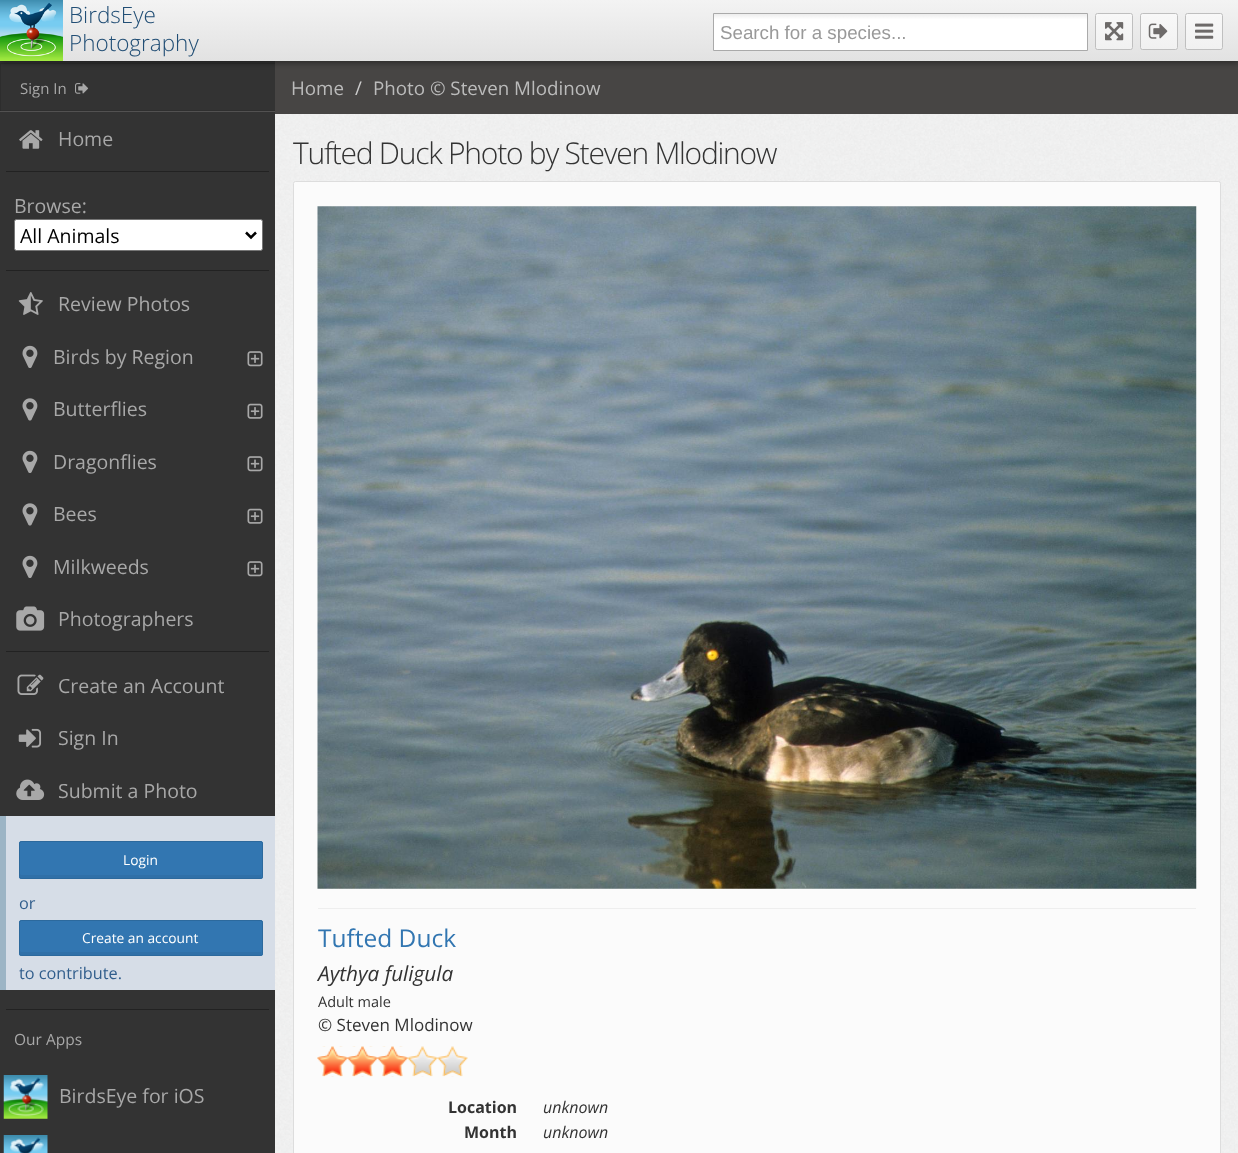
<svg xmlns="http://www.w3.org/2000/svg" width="1238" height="1153">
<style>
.a{font:300 22.5px Open Sans;fill:#214e75}
.b{font:18.75px Liberation Sans;fill:#999}
.c{font:15px Open Sans;fill:#a8a8a8}
.d{font:19.5px Open Sans;fill:#a8a8a8}
.e{font:19.5px Open Sans;fill:#000}
.f{font:13.75px Open Sans;fill:#fff}
.g{font:16.25px Open Sans;fill:#305d8c}
.h{font:15.5px Open Sans;fill:#a8a8a8}
.i{font:18.75px Open Sans;fill:#bbb}
.j{font:18.75px Open Sans;fill:#ccc}
.k{font:300 30px Open Sans;letter-spacing:-1.25px;fill:#333}
.l{font:24.5px Open Sans;fill:#3276b1}
.m{font:italic 20.75px Open Sans;fill:#333}
.n{font:14.5px Open Sans;fill:#333}
.o{font:17px Open Sans;fill:#333}
.p{font:bold 16px Open Sans;fill:#333}
.q{font:italic 16px Open Sans;fill:#333}
</style>
<defs>
<clipPath id="clip1"><path d="M0 63h275v48H0z"/></clipPath>
<linearGradient id="g1" gradientUnits="userSpaceOnUse" x1="619" y1="0" x2="619" y2="61"><stop offset="0" stop-color="#f3f3f3"/><stop offset="1" stop-color="#e2e2e2"/></linearGradient>
<linearGradient id="g2" gradientUnits="userSpaceOnUse" x1="900" y1="14" x2="900" y2="50"><stop offset="0.01" stop-color="#eee"/><stop offset="0.15" stop-color="#fff"/></linearGradient>
<clipPath id="clip2"><rect x="1095" y="13" width="38" height="37" rx="2.5"/></clipPath>
<linearGradient id="g3" gradientUnits="userSpaceOnUse" x1="1114" y1="14" x2="1114" y2="49"><stop offset="0" stop-color="#f8f8f8"/><stop offset="1" stop-color="#f1f1f1"/></linearGradient>
<clipPath id="clip3"><rect x="1140" y="13" width="38" height="37" rx="2.5"/></clipPath>
<linearGradient id="g4" gradientUnits="userSpaceOnUse" x1="1159" y1="14" x2="1159" y2="49"><stop offset="0" stop-color="#f8f8f8"/><stop offset="1" stop-color="#f1f1f1"/></linearGradient>
<clipPath id="clip4"><rect x="1185" y="13" width="38" height="37" rx="2.5"/></clipPath>
<linearGradient id="g5" gradientUnits="userSpaceOnUse" x1="1204" y1="14" x2="1204" y2="49"><stop offset="0" stop-color="#f8f8f8"/><stop offset="1" stop-color="#f1f1f1"/></linearGradient>
</defs>
<rect width="100%" height="100%" fill="#fff"/>
<image href="1.png" x="275" y="114" width="963" height="1039"/>
<path fill="#333" d="M0 61h275v1092H0z"/>
<path fill="#2f2f2f" d="M0 110h275v1H0z"/>
<g clip-path="url(#clip1)">
<path fill="#0000001a" fill-rule="evenodd" d="M-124-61h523v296h-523zm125 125h275v48h-275z"/>
</g>
<path fill="#474544" d="M275 61h963v53H275z"/>
<path fill="#00000066" filter="blur(3px)" d="M0 1h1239v62H0z"/>
<path fill="url(#g1)" d="M63 0h1175v61H63z"/>
<image href="2.png" x="0" y="0" width="63" height="61"/>
<path fill="url(#g2)" d="M714 15h373v35H714z"/>
<path fill="none" stroke="#aaa" d="M713.5 13.5h374v37H713.5z"/>
<g clip-path="url(#clip2)">
<path fill="url(#g3)" d="M1095 14h38v35H1095z"/>
</g>
<rect fill="none" stroke="#bfbfbf" x="1095.5" y="13.5" width="37" height="36" rx="2"/>
<image href="3.png" x="1105" y="22" width="19" height="19"/>
<g clip-path="url(#clip3)">
<path fill="url(#g4)" d="M1140 14h38v35H1140z"/>
</g>
<rect fill="none" stroke="#bfbfbf" x="1140.5" y="13.5" width="37" height="36" rx="2"/>
<image href="4.png" x="1148" y="23" width="20" height="16"/>
<g clip-path="url(#clip4)">
<path fill="url(#g5)" d="M1185 14h38v35H1185z"/>
</g>
<rect fill="none" stroke="#bfbfbf" x="1185.5" y="13.5" width="37" height="36" rx="2"/>
<image href="5.png" x="1195" y="23" width="19" height="16"/>
<path fill="#525151" d="M0 111h275v1H0z"/>
<image href="6.png" x="75" y="83" width="14" height="11"/>
<image href="7.png" x="19" y="130" width="24" height="19"/>
<path fill="#222" d="M6 171h263v1H6z"/>
<rect fill="#fff" stroke="#767676" x="14.5" y="219.5" width="248" height="31" rx="2"/>
<path fill="none" stroke="#000" stroke-width="2.5" d="M246 232.5l5 5l5-5"/>
<path fill="#222" d="M6 270h263v1H6z"/>
<image href="8.png" x="18" y="292" width="25" height="23"/>
<image href="9.png" x="22" y="345" width="16" height="23"/>
<image href="10.png" x="247" y="351" width="16" height="16"/>
<image href="11.png" x="22" y="398" width="16" height="23"/>
<image href="12.png" x="247" y="403" width="16" height="16"/>
<image href="9.png" x="22" y="450" width="16" height="23"/>
<image href="10.png" x="247" y="456" width="16" height="16"/>
<image href="11.png" x="22" y="503" width="16" height="23"/>
<image href="12.png" x="247" y="508" width="16" height="16"/>
<image href="9.png" x="22" y="555" width="16" height="23"/>
<image href="10.png" x="247" y="561" width="16" height="16"/>
<image href="13.png" x="16" y="606" width="29" height="25"/>
<path fill="#222" d="M6 651h263v1H6z"/>
<image href="14.png" x="17" y="674" width="27" height="21"/>
<image href="15.png" x="18" y="728" width="24" height="20"/>
<image href="16.png" x="16" y="779" width="29" height="21"/>
<path fill="#d6dde7" d="M6 816h269v174H6z"/>
<path fill="#9cb4c5" d="M0 816h6v174H0z"/>
<rect fill="#3276b1" x="19" y="841" width="244" height="38" rx="2.5"/>
<path fill="#3070a8" d="M20 874c0 1-1 4 1 4h239c2 0 1-3 1-4l-1 1h-239z"/>
<rect fill="none" stroke="#2c699d" x="19.5" y="841.5" width="243" height="37" rx="2"/>
<rect fill="#3276b1" x="19" y="920" width="244" height="36" rx="2.5"/>
<path fill="#3070a8" d="M20 951c0 1-1 3 1 4h239c2 0 1-3 1-4c0 1 0 1-1 1h-239z"/>
<rect fill="none" stroke="#2c699d" x="19.5" y="920.5" width="243" height="35" rx="2"/>
<path fill="#222" d="M6 1009h263v1H6z"/>
<image href="17.png" x="3" y="1075" width="45" height="44"/>
<image href="18.png" x="3" y="1135" width="45" height="18"/>
<rect fill="#fbfbfb" stroke="#ddd" x="293.5" y="181.5" width="927" height="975" rx="2"/>
<image href="19.png" x="317" y="206" width="880" height="683"/>
<path fill="#eee" d="M318 908h878v1H318z"/>
<image href="20.png" x="317" y="1046" width="151" height="31"/>
<image href="21.png" x="317" y="1046" width="91" height="31"/>
<text class="a" x="69" y="23">BirdsEye</text>
<text class="a" x="69" y="51">Photography</text>
<text class="b" x="720" y="39">Search for a species...</text>
<text class="c" x="20" y="94">Sign In</text>
<text class="d" x="58" y="146">Home</text>
<text class="d" x="14" y="213">Browse:</text>
<text class="e" x="20" y="243">All Animals</text>
<text class="d" x="58" y="311">Review Photos</text>
<text class="d" x="53" y="364">Birds by Region</text>
<text class="d" x="53" y="416">Butterflies</text>
<text class="d" x="53" y="469">Dragonflies</text>
<text class="d" x="53" y="521">Bees</text>
<text class="d" x="53" y="574">Milkweeds</text>
<text class="d" x="58" y="626">Photographers</text>
<text class="d" x="58" y="693">Create an Account</text>
<text class="d" x="58" y="745">Sign In</text>
<text class="d" x="58" y="798">Submit a Photo</text>
<text class="f" x="123" y="865">Login</text>
<text class="g" x="19" y="909">or</text>
<text class="f" x="82" y="943">Create an account</text>
<text class="g" x="19" y="979">to contribute.</text>
<text class="h" x="14" y="1045">Our Apps</text>
<text class="d" x="59" y="1103">BirdsEye for iOS</text>
<text class="i" x="291" y="95">Home</text>
<text class="j" x="355" y="95">/</text>
<text class="i" x="373" y="95">Photo © Steven Mlodinow</text>
<text class="k" x="293" y="164">Tufted Duck Photo by Steven Mlodinow</text>
<text class="l" x="318" y="947">Tufted Duck</text>
<text class="m" x="318" y="981">Aythya fuligula</text>
<text class="n" x="318" y="1007">Adult male</text>
<text class="o" x="318" y="1031">© Steven Mlodinow</text>
<text class="p" x="448" y="1113">Location</text>
<text class="q" x="543" y="1113">unknown</text>
<text class="p" x="464" y="1138">Month</text>
<text class="q" x="543" y="1138">unknown</text>
</svg>
